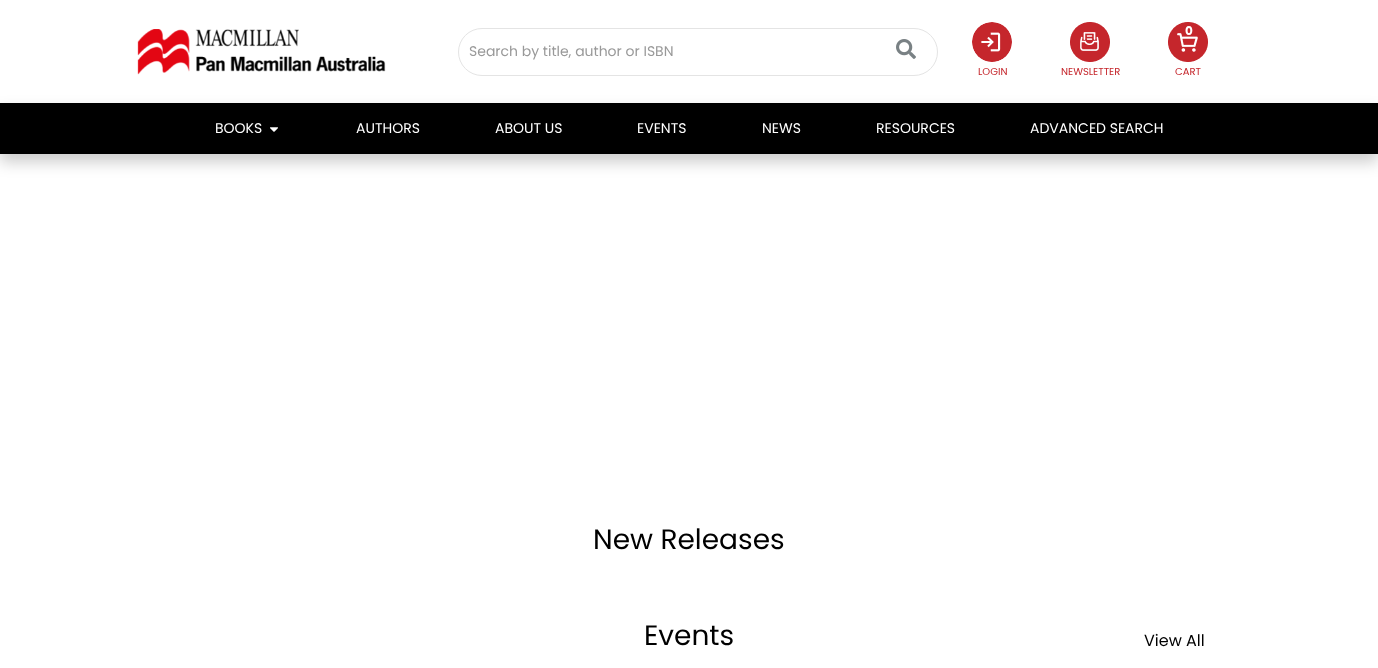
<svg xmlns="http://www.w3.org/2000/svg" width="1378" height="668">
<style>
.a{font:14px Poppins;fill:#999}
.b{font:10px Poppins;fill:#c5262c}
.c{font:bold 12px Poppins;fill:#fff}
.d{font:14px Poppins;fill:#fff}
.e{font:28px Poppins;fill:#000}
.f{font:16px Poppins;fill:#000}
</style>
<rect width="100%" height="100%" fill="#fff"/>
<image href="1.png" x="137" y="29" width="249" height="46"/>
<rect fill="none" stroke="#e4e4e4" x="458.5" y="28.5" width="479" height="47" rx="23.5"/>
<image href="2.png" x="896" y="39" width="20" height="20"/>
<image href="3.png" x="972" y="22" width="40" height="40"/>
<image href="4.png" x="1070" y="22" width="40" height="40"/>
<image href="5.png" x="1168" y="22" width="40" height="40"/>
<path fill="#00000033" filter="blur(7.5px)" d="M0 111h1378v51H0z"/>
<path fill="#000" d="M0 103h1378v51H0z"/>
<image href="6.png" x="270" y="127" width="8" height="5"/>
<text class="a" x="469" y="56">Search by title, author or ISBN</text>
<text class="b" x="978" y="75">LOGIN</text>
<text class="b" x="1061" y="75">NEWSLETTER</text>
<text class="c" x="1185" y="35">0</text>
<text class="b" x="1175" y="75">CART</text>
<text class="d" x="215" y="133">BOOKS</text>
<text class="d" x="356" y="133">AUTHORS</text>
<text class="d" x="495" y="133">ABOUT US</text>
<text class="d" x="637" y="133">EVENTS</text>
<text class="d" x="762" y="133">NEWS</text>
<text class="d" x="876" y="133">RESOURCES</text>
<text class="d" x="1030" y="133">ADVANCED SEARCH</text>
<text class="e" x="593" y="549">New Releases</text>
<text class="e" x="644" y="645">Events</text>
<text class="f" x="1144" y="646">View All</text>
</svg>
